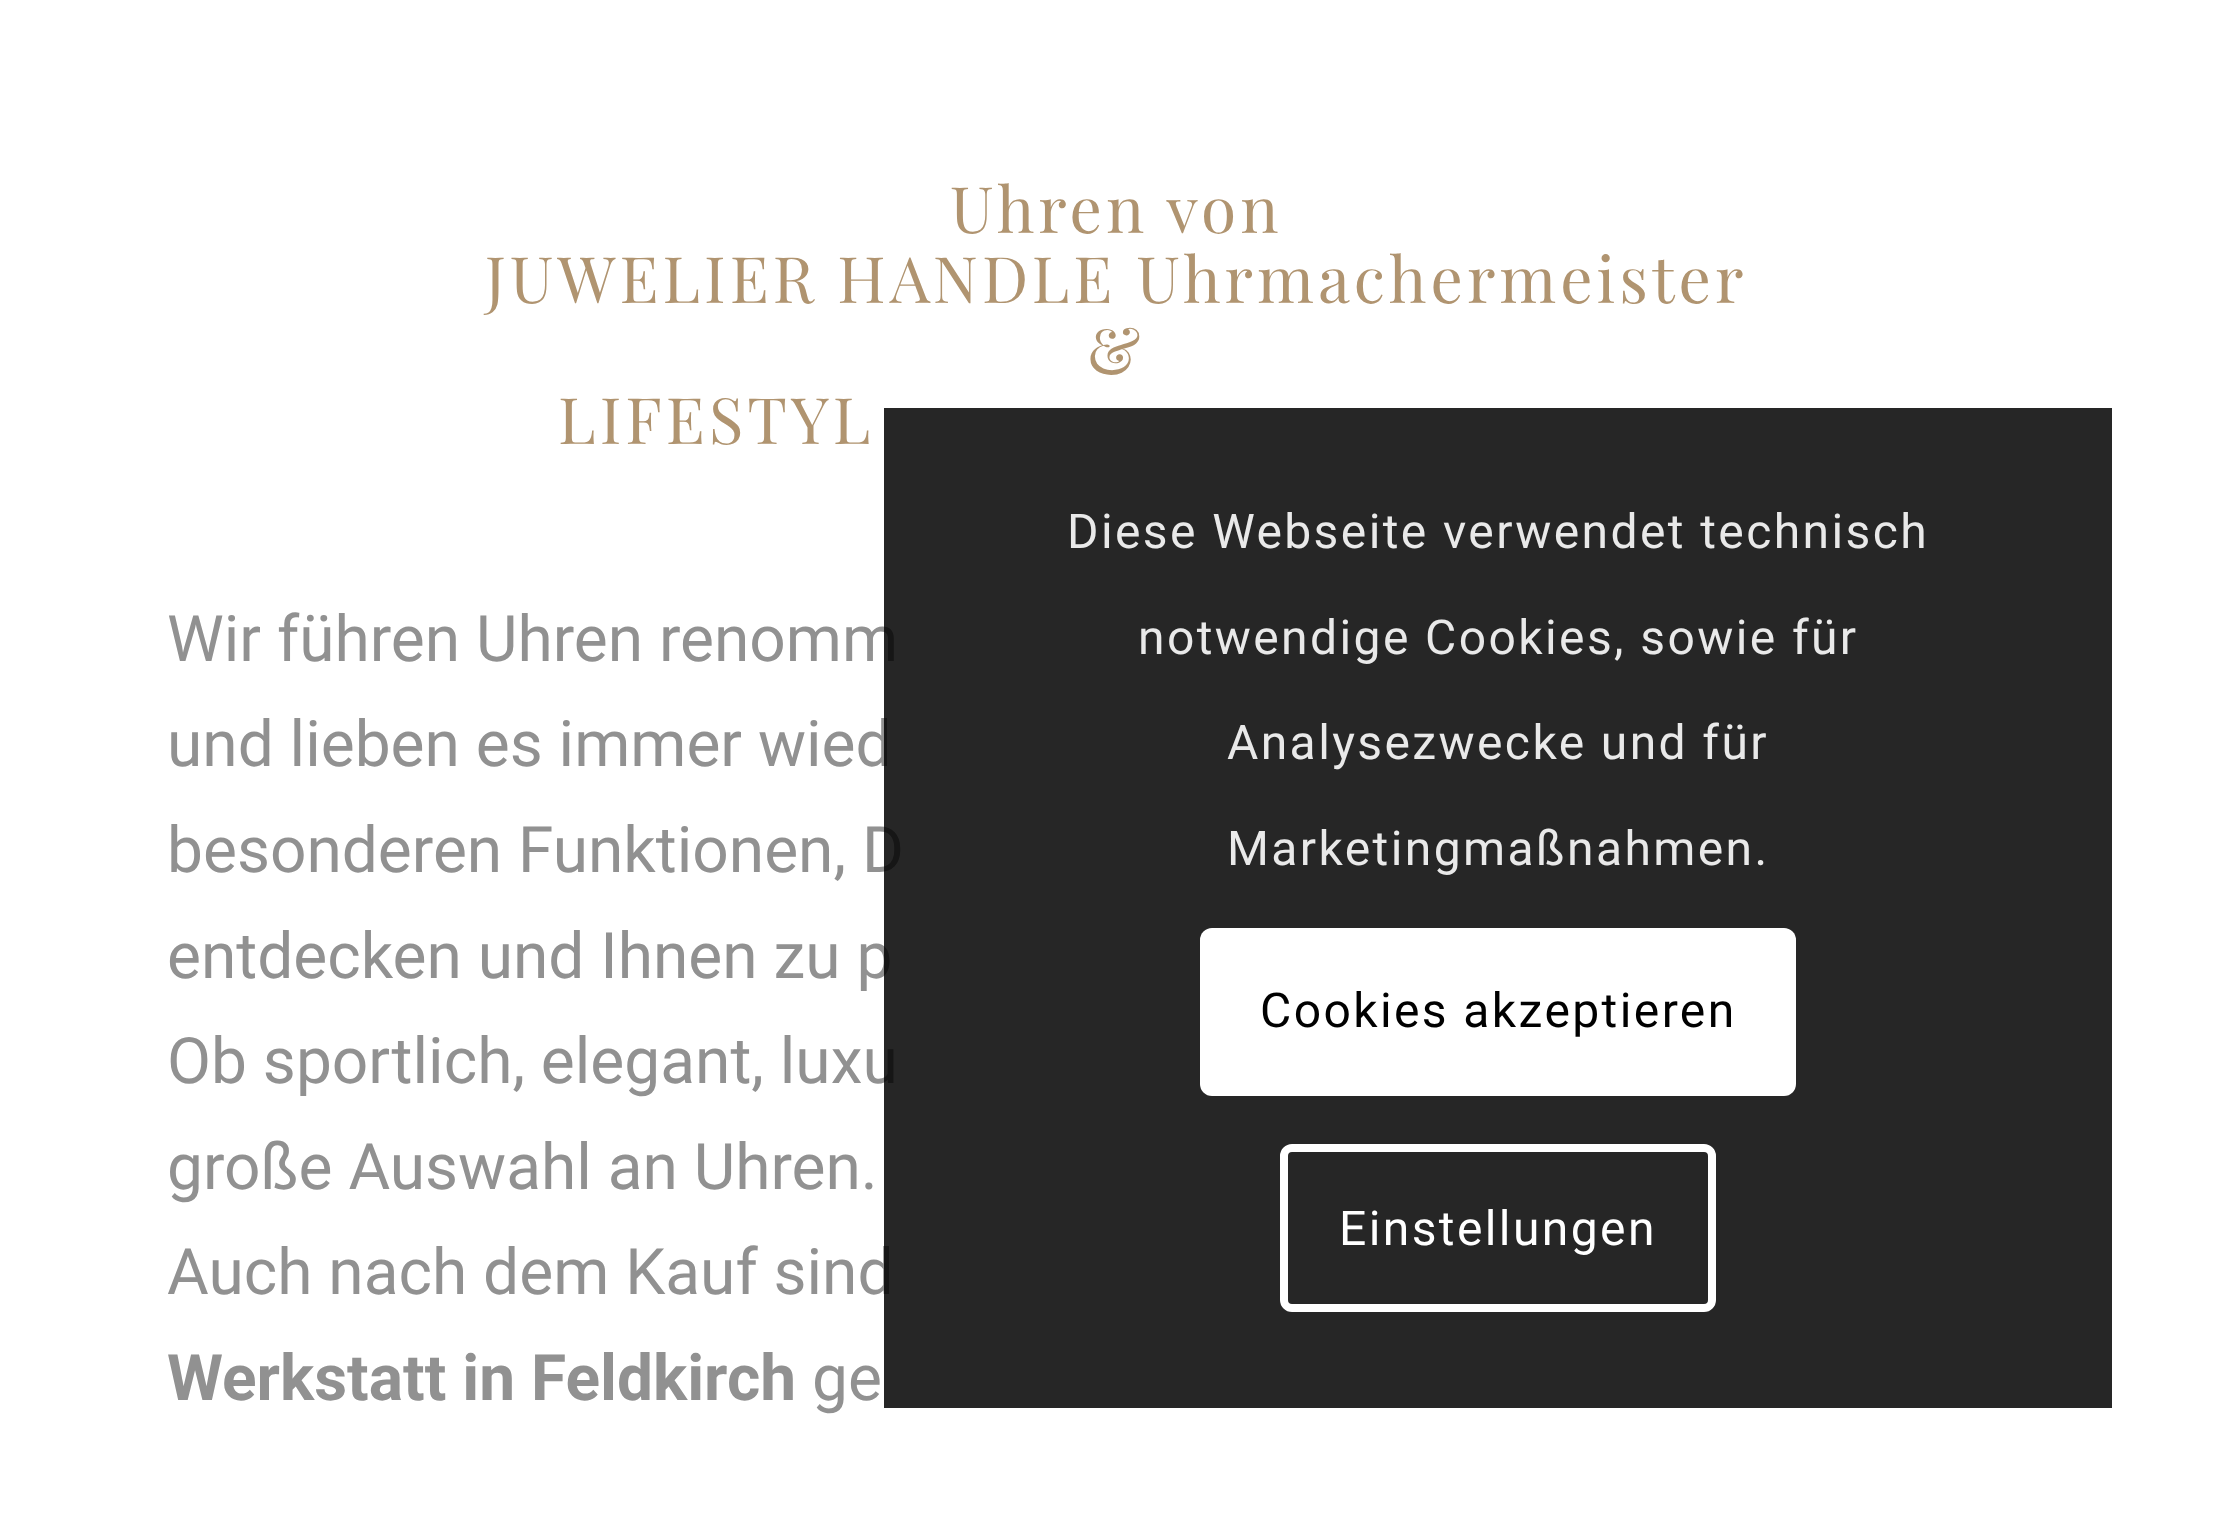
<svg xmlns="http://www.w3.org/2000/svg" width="2232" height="1526">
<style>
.a{font:64px Playfair Display;letter-spacing:4px;fill:#b09470}
.b{font:64px Roboto;fill:#919191}
.c{font:bold 64px Roboto;fill:#919191}
.d{font:48px Roboto;letter-spacing:2.4px;fill:#e9e9e9}
.e{font:48px Roboto;letter-spacing:2.4px;fill:#000}
.f{font:48px Roboto;letter-spacing:2.4px;fill:#fff}
</style>
<rect width="100%" height="100%" fill="#fff"/>
<text class="a" x="950" y="233">Uhren von</text>
<text class="a" x="485" y="303">JUWELIER HANDLE Uhrmachermeister</text>
<text class="a" x="1087" y="374">&amp;</text>
<text class="a" x="558" y="444">LIFESTYL</text>
<text class="b" x="167" y="661">Wir führen Uhren renomm</text>
<text class="b" x="167" y="766">und lieben es immer wied</text>
<text class="b" x="167" y="872">besonderen Funktionen, D</text>
<text class="b" x="167" y="978">entdecken und Ihnen zu p</text>
<text class="b" x="167" y="1083">Ob sportlich, elegant, luxu</text>
<text class="b" x="167" y="1189">große Auswahl an Uhren.</text>
<text class="b" x="167" y="1294">Auch nach dem Kauf sind</text>
<text class="c" x="167" y="1400">Werkstatt in Feldkirch</text>
<text class="b" x="812" y="1400">ge</text>
<path fill="#000000d9" d="M884 408h1228v1000H884z"/>
<text class="d" x="1067" y="548">Diese Webseite verwendet technisch</text>
<text class="d" x="1138" y="654">notwendige Cookies, sowie für</text>
<text class="d" x="1227" y="759">Analysezwecke und für</text>
<text class="d" x="1227" y="865">Marketingmaßnahmen.</text>
<rect fill="#fff" x="1200" y="928" width="596" height="168" rx="12"/>
<text class="e" x="1260" y="1027">Cookies akzeptieren</text>
<rect fill="none" stroke="#fff" stroke-width="8" x="1284" y="1148" width="428" height="160" rx="8"/>
<text class="f" x="1339" y="1245">Einstellungen</text>
</svg>
